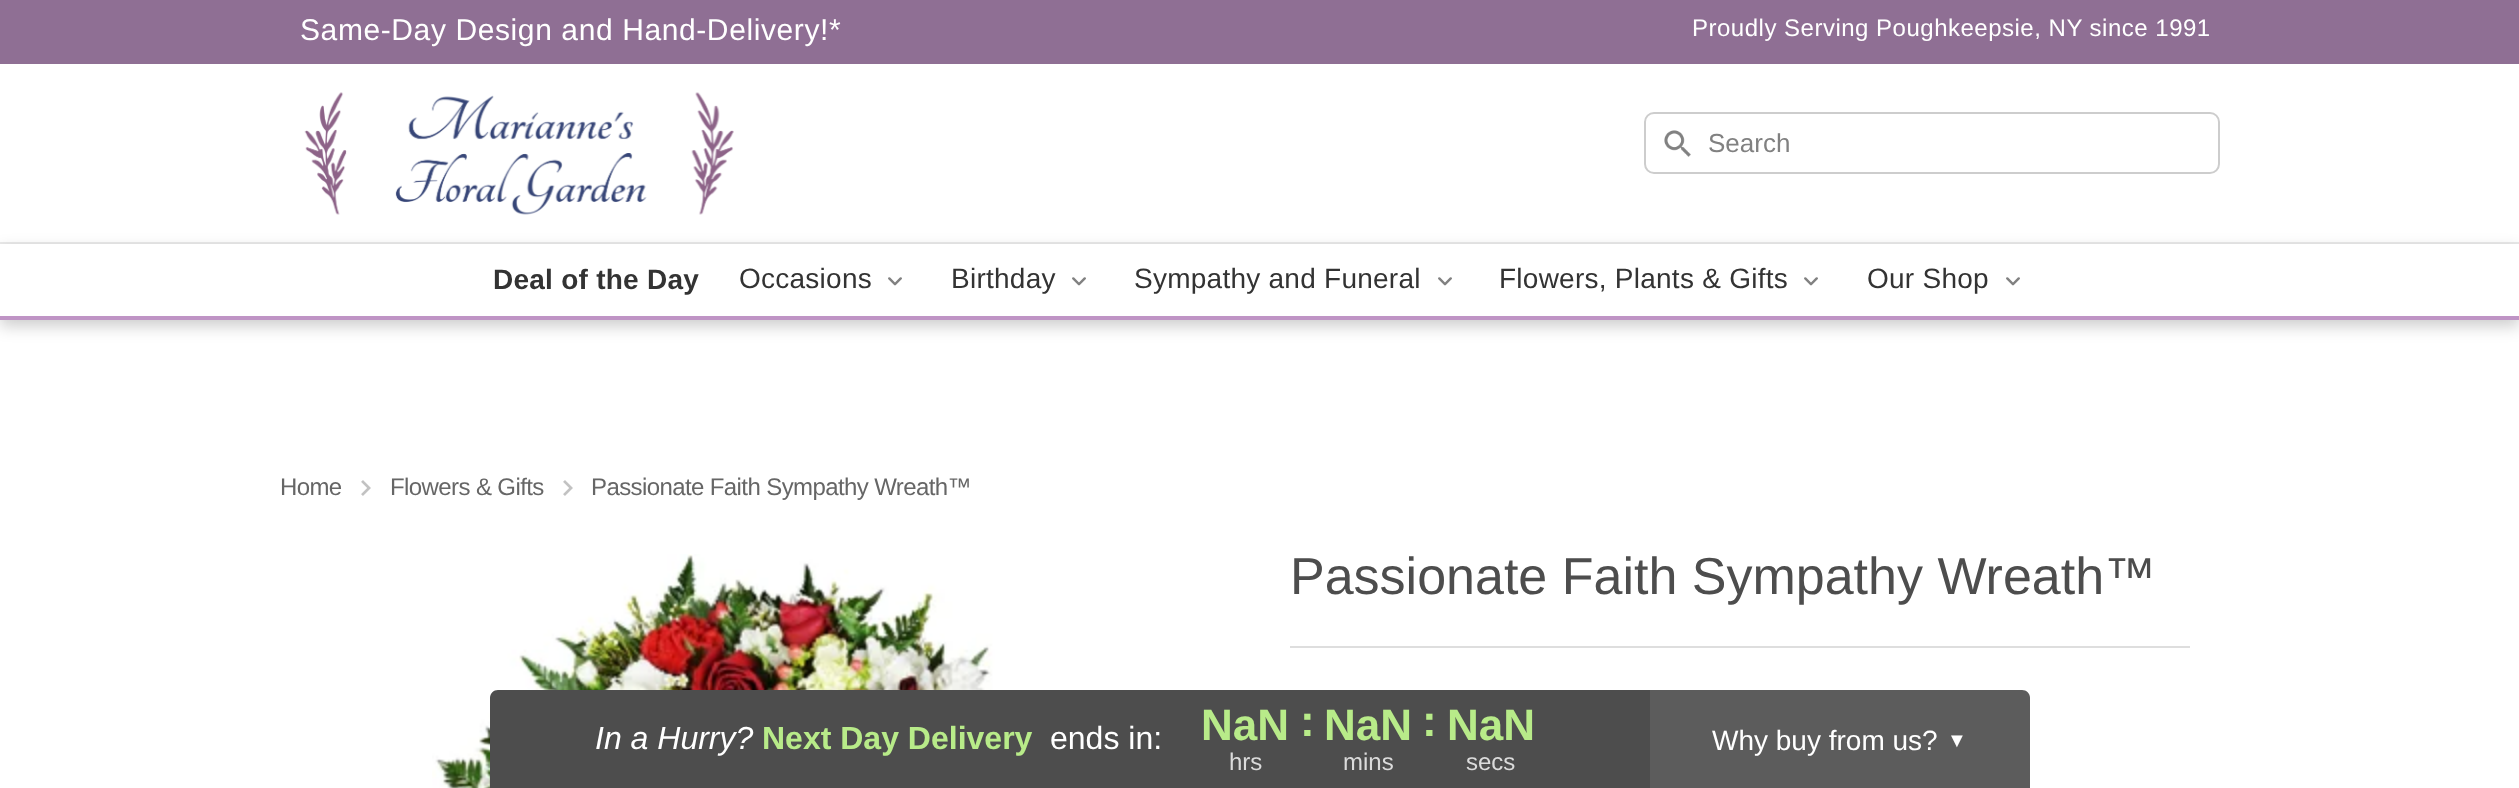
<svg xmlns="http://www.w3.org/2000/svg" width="2519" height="788">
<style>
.a{font:30px Liberation Sans;letter-spacing:0.6px;fill:#fff}
.b{font:24px Liberation Sans;letter-spacing:0.5px;fill:#fff}
.c{font:26px Liberation Sans;fill:#818181}
.d{font:bold 28px Liberation Sans;letter-spacing:0.25px;fill:#333}
.e{font:28px Liberation Sans;letter-spacing:0.25px;fill:#333}
.f{font:24px Liberation Sans;letter-spacing:-0.6px;fill:#666}
.g{font:52px Liberation Sans;fill:#4d4d4d}
.h{font:italic 32px Liberation Sans;fill:#fff}
.i{font:bold 32px Liberation Sans;fill:#b8eb89}
.j{font:32px Liberation Sans;fill:#fff}
.k{font:bold 44px Liberation Sans;fill:#b8eb89}
.l{font:24px Liberation Sans;fill:#dbdbdb}
.m{font:28px Liberation Sans;fill:#fff}
.n{font:20px Liberation Sans;fill:#fff}
</style>
<defs>
<clipPath id="clip1"><path d="M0 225h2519v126h-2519zm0 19h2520v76h-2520z" clip-rule="evenodd"/></clipPath>
</defs>
<rect width="100%" height="100%" fill="#fff"/>
<path fill="#8f6f94" d="M0 0h2519v64H0z"/>
<path fill="#eaeaea" d="M0 242h2519v2H0z"/>
<image href="1.png" x="304" y="92" width="430" height="123"/>
<image href="2.png" x="1664" y="130" width="27" height="27"/>
<rect fill="none" stroke="#cdcdcd" stroke-width="2" x="1645" y="113" width="574" height="60" rx="9"/>
<g clip-path="url(#clip1)">
<path fill="#00000033" filter="blur(8px)" d="M0 250h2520v76H0z"/>
</g>
<path fill="#bf94c5" d="M0 316h2519v4H0z"/>
<image href="3.png" x="888" y="277" width="14" height="9"/>
<image href="3.png" x="1072" y="277" width="14" height="9"/>
<image href="3.png" x="1438" y="277" width="14" height="9"/>
<image href="3.png" x="1804" y="277" width="14" height="9"/>
<image href="3.png" x="2006" y="277" width="14" height="9"/>
<image href="4.png" x="361" y="480" width="10" height="16"/>
<image href="4.png" x="563" y="480" width="10" height="16"/>
<image href="5.png" x="432" y="554" width="646" height="234"/>
<path fill="#dedede" d="M1290 646h900v2H1290z"/>
<path fill="#4d4d4d" d="M498 690h1152v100h-1160v-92c0-4.5 3.5-8 8-8z"/>
<path fill="#5c5c5c" d="M1650 690h372c4.5 0 8 3.5 8 8v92h-380z"/>
<text class="a" x="300" y="40">Same-Day Design and Hand-Delivery!*</text>
<text class="b" x="1692" y="36">Proudly Serving Poughkeepsie, NY since 1991</text>
<text class="c" x="1708" y="152">Search</text>
<text class="d" x="493" y="289">Deal of the Day</text>
<text class="e" x="739" y="288">Occasions</text>
<text class="e" x="951" y="288">Birthday</text>
<text class="e" x="1134" y="288">Sympathy and Funeral</text>
<text class="e" x="1499" y="288">Flowers, Plants &amp; Gifts</text>
<text class="e" x="1867" y="288">Our Shop</text>
<text class="f" x="280" y="495">Home</text>
<text class="f" x="390" y="495">Flowers &amp; Gifts</text>
<text class="f" x="591" y="495">Passionate Faith Sympathy Wreath™</text>
<text class="g" x="1290" y="594">Passionate Faith Sympathy Wreath™</text>
<text class="h" x="595" y="749">In a Hurry?</text>
<text class="i" x="762" y="749">Next Day Delivery</text>
<text class="j" x="1050" y="749">ends in:</text>
<text class="k" x="1201" y="740">NaN</text>
<text class="l" x="1229" y="770">hrs</text>
<text class="k" x="1300" y="736">:</text>
<text class="k" x="1324" y="740">NaN</text>
<text class="l" x="1343" y="770">mins</text>
<text class="k" x="1422" y="736">:</text>
<text class="k" x="1447" y="740">NaN</text>
<text class="l" x="1466" y="770">secs</text>
<text class="m" x="1712" y="750">Why buy from us?</text>
<text class="n" x="1947" y="747">▼</text>
</svg>
